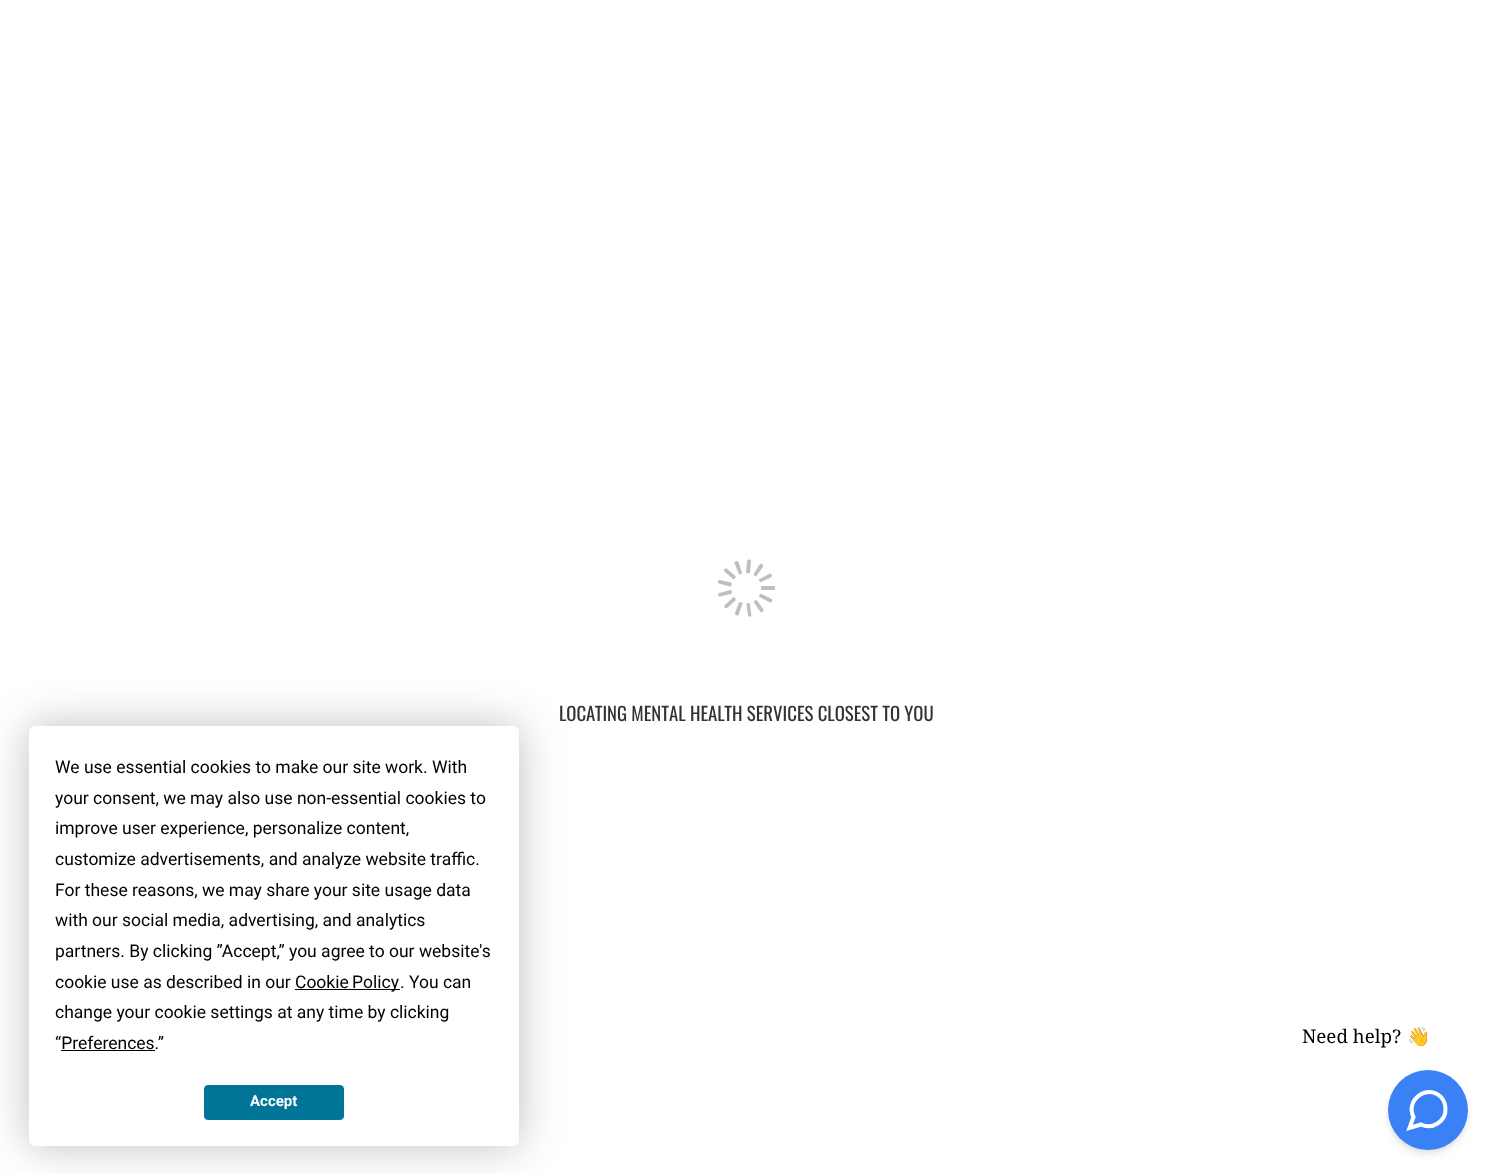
<svg xmlns="http://www.w3.org/2000/svg" width="1492" height="1174">
<style>
.a{font:18.75px Oswald;fill:#333}
.b{font:17.5px Roboto;fill:#000}
.c{font:bold 15px Roboto;fill:#fff}
.d{font:18.75px Droid Serif;fill:#000}
.e{font:18.75px Noto Color Emoji;fill:#000}
</style>
<rect width="100%" height="100%" fill="#fff"/>
<path fill="#bfbfbf" d="M761.5 594l8.5 4c2 1 3.5 1.5 1.5 4c-.5 .5-1 .5-1.5 .5l-10.5-5.5c-1-1 .5-4 2-3z"/>
<path fill="#bfbfbf" d="M757 600.5l5.5 7.5c1.5 2 2 3-.5 4c-.5 .5-1 .5-1.5 0l-6.5-9.5c-.5-1.5 2-3.5 3-2zm-7 3.5l1 9.5c.5 2 1 3.5-2 3c-.5 0-1 0-1-.5l-1.5-12c0-1.5 3.5-1.5 3.5 0zm-7.5 0l-4 11c-.5 .5-1 .5-1.5 .5c-2.5-.5-2-2-1.5-4l3.5-9c1-1.5 4 0 3.5 1.5z"/>
<path fill="#bfbfbf" d="M735.5 600.5l-8.5 7.5c-.5 .5-1 .5-1.5 0c-2.5-2-1-2.5 .5-4l7-6.5c1.5-1 3.5 1.5 2.5 3zm-4.5-6.5l-11 2.5c-.5 0-1 0-1.5-.5c-1-2.5 0-3 2.5-3.5l9.5-2.5c1.5 0 2 3.5 .5 4zm-1-7.5l-11-3c-.5 0-1-.5-1-1c0-3 1.5-2.5 3.5-2l9.5 2c1.5 1 .5 4-1 4zm3-7.5l-7.5-6.5c-1.5-1.5-2.5-2-.5-4c.5 0 1 0 1.5 0l9 7.5c1 1.5-1.5 4-2.5 3z"/>
<path fill="#bfbfbf" d="M738.5 573.5l-4-10.5c0-.5 0-1 .5-1.5c2.5-1.5 3 0 4 2l3 9c.5 1.5-2.5 3-3.5 1zm7.5-1.5l1-9.5c.5-2.5 .5-3.5 3-3c.5 .5 1 .5 1 1l-1 12c-.5 1.5-4 1-4-.5zm8 1.5l6-9.5c.5-.5 1-.5 1.5 0c3 1 2 2 .5 4l-5.5 8c-1 1-3.5-1-2.5-2.5z"/>
<path fill="#bfbfbf" d="M759.5 579l10.5-5.5c.5 0 1 0 1 .5c2 2 1 2.5-1 4l-9 4c-1.5 .5-3-2.5-1.5-3z"/>
<rect fill="#bfbfbf" x="761" y="586" width="14" height="4" rx="1"/>
<rect fill="#00000040" filter="blur(22px)" x="29" y="726" width="490" height="420" rx="6"/>
<rect fill="#fff" x="29" y="726" width="490" height="420" rx="6"/>
<path fill="#000" d="M295 989h105v1H295z"/>
<path fill="#000" d="M61 1050h94v1H61z"/>
<rect fill="#007598" stroke="#007598" x="204.5" y="1085.5" width="139" height="34" rx="3.5"/>
<rect fill="#0000001a" filter="blur(2.5px)" x="1390" y="1075" width="75" height="75" rx="37.5"/>
<rect fill="#0000001a" filter="blur(4px)" x="1389" y="1076" width="77" height="78" rx="38.5"/>
<circle fill="#3b81f6" cx="1428" cy="1110" r="40"/>
<path fill="none" stroke="#fff" stroke-width="4" d="M1445.5 1109c.5 12.5-13.5 21-24.5 15.5l-11.5 3.5l4-11c-8.5-17 13.5-33.5 27.5-20c3 3.5 4.5 7.5 4.5 12z"/>
<text class="a" x="559" y="721">LOCATING MENTAL HEALTH SERVICES CLOSEST TO YOU</text>
<text class="b" x="55" y="773">We use essential cookies to make our site work. With</text>
<text class="b" x="55" y="804">your consent, we may also use non-essential cookies to</text>
<text class="b" x="55" y="834">improve user experience, personalize content,</text>
<text class="b" x="55" y="865">customize advertisements, and analyze website traffic.</text>
<text class="b" x="55" y="896">For these reasons, we may share your site usage data</text>
<text class="b" x="55" y="926">with our social media, advertising, and analytics</text>
<text class="b" x="55" y="957">partners. By clicking ”Accept,” you agree to our website's</text>
<text class="b" x="55" y="988">cookie use as described in our</text>
<text class="b" x="295" y="988" word-spacing="-1">Cookie Policy</text>
<text class="b" x="400" y="988">. You can</text>
<text class="b" x="55" y="1018">change your cookie settings at any time by clicking</text>
<text class="b" x="55" y="1049">“Preferences.”</text>
<text class="c" x="250" y="1106">Accept</text>
<text class="d" x="1302" y="1043">Need help?</text>
<text class="e" x="1407" y="1043">👋</text>
</svg>
